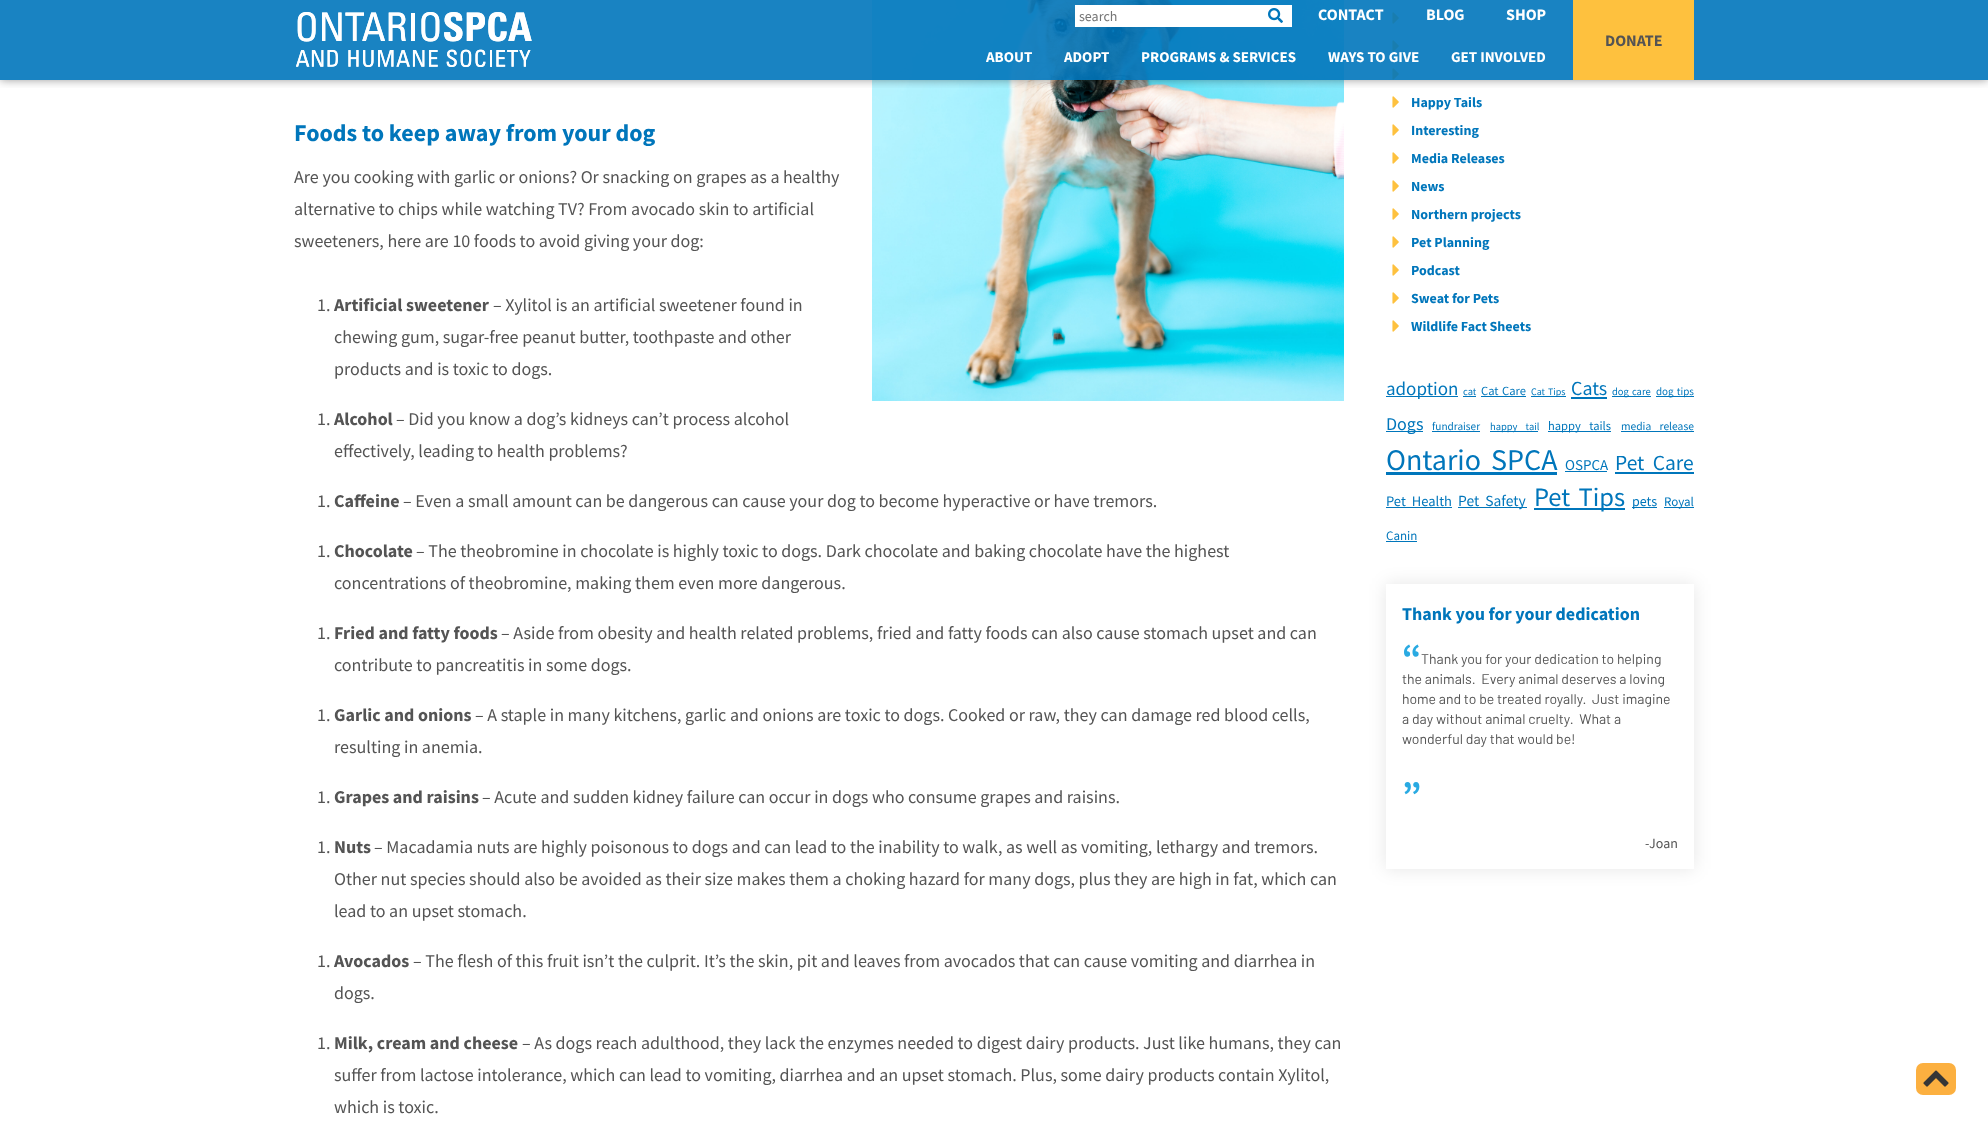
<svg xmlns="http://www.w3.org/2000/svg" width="1988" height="1127">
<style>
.a{font:14px Source Sans Pro;fill:#757575}
.b{font:bold 16px Source Sans Pro;fill:#fff}
.c{font:bold 16px Source Sans Pro;fill:#545454}
.d{font:bold 15px Source Sans Pro;fill:#fff}
.e{font:bold 24px Source Sans Pro;fill:#0076bb}
.f{font:18px Source Sans Pro;fill:#545454}
.g{font:bold 18px Source Sans Pro;fill:#545454}
.h{font:bold 14px Source Sans Pro;fill:#0076bb}
.i{font:19px Source Sans Pro;fill:#0076bb}
.j{font:10.5px Source Sans Pro;fill:#0076bb}
.k{font:12.5px Source Sans Pro;fill:#0076bb}
.l{font:10px Source Sans Pro;fill:#0076bb}
.m{font:20px Source Sans Pro;fill:#0076bb}
.n{font:11px Source Sans Pro;fill:#0076bb}
.o{font:18px Source Sans Pro;fill:#0076bb}
.p{font:11.25px Source Sans Pro;fill:#0076bb}
.q{font:11.5px Source Sans Pro;fill:#0076bb}
.r{font:30px Source Sans Pro;fill:#0076bb}
.s{font:15px Source Sans Pro;fill:#0076bb}
.t{font:21.5px Source Sans Pro;fill:#0076bb}
.u{font:14.5px Source Sans Pro;fill:#0076bb}
.v{font:15.5px Source Sans Pro;fill:#0076bb}
.w{font:26.5px Source Sans Pro;fill:#0076bb}
.x{font:14px Source Sans Pro;fill:#0076bb}
.y{font:13px Source Sans Pro;fill:#0076bb}
.z{font:bold 18px Source Sans Pro;fill:#0076bb}
.a1{font:bold 36px Source Sans Pro;fill:#29aae2}
.b1{font:14px Barlow;fill:#545454}
.c1{font:14px Source Sans Pro;fill:#545454}
</style>
<defs>
<clipPath id="clip1"><path d="M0 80h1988v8H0z"/></clipPath>
<clipPath id="clip2"><path d="M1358 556h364v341h-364zm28 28h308v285h-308z" clip-rule="evenodd"/></clipPath>
</defs>
<rect width="100%" height="100%" fill="#fff"/>
<image href="3.png" x="872" y="0" width="472" height="401"/>
<image href="4.png" x="1392" y="12" width="7" height="12"/>
<image href="4.png" x="1392" y="40" width="7" height="12"/>
<image href="4.png" x="1392" y="68" width="7" height="12"/>
<g clip-path="url(#clip1)">
<path fill="#00000066" filter="blur(5px)" d="M0 0h1988v80H0z"/>
</g>
<path fill="#0076bbe6" d="M0 0h1988v80H0z"/>
<image href="1.png" x="296" y="12" width="236" height="55"/>
<path fill="#fff" d="M1075 5h217v22H1075z"/>
<image href="2.png" x="1268" y="8" width="15" height="15"/>
<path fill="#fec13e" d="M1573 0h121v80H1573z"/>
<image href="4.png" x="1392" y="96" width="7" height="12"/>
<image href="4.png" x="1392" y="124" width="7" height="12"/>
<image href="4.png" x="1392" y="152" width="7" height="12"/>
<image href="4.png" x="1392" y="180" width="7" height="12"/>
<image href="4.png" x="1392" y="208" width="7" height="12"/>
<image href="4.png" x="1392" y="236" width="7" height="12"/>
<image href="4.png" x="1392" y="264" width="7" height="12"/>
<image href="4.png" x="1392" y="292" width="7" height="12"/>
<image href="4.png" x="1392" y="320" width="7" height="12"/>
<path fill="#0076bb" d="M1386 396h72v1H1386z"/>
<path fill="#0076bb" d="M1463 396h13v1H1463z"/>
<path fill="#0076bb" d="M1481 396h45v1H1481z"/>
<path fill="#0076bb" d="M1531 396h35v1H1531z"/>
<path fill="#0076bb" d="M1571 397h36v2H1571z"/>
<path fill="#0076bb" d="M1612 396h39v1H1612z"/>
<path fill="#0076bb" d="M1656 396h38v1H1656z"/>
<path fill="#0076bb" d="M1386 431h37v1H1386z"/>
<path fill="#0076bb" d="M1432 431h48v1H1432z"/>
<path fill="#0076bb" d="M1490 431h48v1H1490z"/>
<path fill="#0076bb" d="M1548 431h63v1H1548z"/>
<path fill="#0076bb" d="M1621 431h73v1H1621z"/>
<path fill="#0076bb" d="M1386 472h171v3H1386z"/>
<path fill="#0076bb" d="M1565 471h42v1H1565z"/>
<path fill="#0076bb" d="M1615 472h79v2H1615z"/>
<path fill="#0076bb" d="M1386 507h66v1H1386z"/>
<path fill="#0076bb" d="M1458 507h69v1H1458z"/>
<path fill="#0076bb" d="M1534 508h91v2H1534z"/>
<path fill="#0076bb" d="M1632 507h25v1H1632z"/>
<path fill="#0076bb" d="M1664 507h30v1H1664z"/>
<path fill="#0076bb" d="M1386 541h31v1H1386z"/>
<g clip-path="url(#clip2)">
<path fill="#0000001a" filter="blur(9px)" d="M1386 584h308v285H1386z"/>
</g>
<rect fill="#fcb040" x="1916" y="1063" width="40" height="32" rx="7"/>
<image href="5.png" x="1923" y="1070" width="26" height="17"/>
<text class="a" x="1079" y="21">search</text>
<text class="b" x="1318" y="20">CONTACT</text>
<text class="b" x="1426" y="20">BLOG</text>
<text class="b" x="1506" y="20">SHOP</text>
<text class="c" x="1605" y="46">DONATE</text>
<text class="d" x="986" y="62">ABOUT</text>
<text class="d" x="1064" y="62">ADOPT</text>
<text class="d" x="1141" y="62">PROGRAMS &amp; SERVICES</text>
<text class="d" x="1328" y="62">WAYS TO GIVE</text>
<text class="d" x="1451" y="62">GET INVOLVED</text>
<text class="e" x="294" y="141">Foods to keep away from your dog</text>
<text class="f" x="294" y="183">Are you cooking with garlic or onions? Or snacking on grapes as a healthy</text>
<text class="f" x="294" y="215">alternative to chips while watching TV? From avocado skin to artificial</text>
<text class="f" x="294" y="247">sweeteners, here are 10 foods to avoid giving your dog:</text>
<text class="f" x="317" y="311">1.</text>
<text class="g" x="334" y="311">Artificial sweetener</text>
<text class="f" x="493" y="311">– Xylitol is an artificial sweetener found in</text>
<text class="f" x="334" y="343">chewing gum, sugar-free peanut butter, toothpaste and other</text>
<text class="f" x="334" y="375">products and is toxic to dogs.</text>
<text class="f" x="317" y="425">1.</text>
<text class="g" x="334" y="425">Alcohol</text>
<text class="f" x="396" y="425">– Did you know a dog’s kidneys can’t process alcohol</text>
<text class="f" x="334" y="457">effectively, leading to health problems?</text>
<text class="f" x="317" y="507">1.</text>
<text class="g" x="334" y="507">Caffeine</text>
<text class="f" x="403" y="507">– Even a small amount can be dangerous can cause your dog to become hyperactive or have tremors.</text>
<text class="f" x="317" y="557">1.</text>
<text class="g" x="334" y="557">Chocolate</text>
<text class="f" x="416" y="557">– The theobromine in chocolate is highly toxic to dogs. Dark chocolate and baking chocolate have the highest</text>
<text class="f" x="334" y="589">concentrations of theobromine, making them even more dangerous.</text>
<text class="f" x="317" y="639">1.</text>
<text class="g" x="334" y="639">Fried and fatty foods</text>
<text class="f" x="501" y="639">– Aside from obesity and health related problems, fried and fatty foods can also cause stomach upset and can</text>
<text class="f" x="334" y="671">contribute to pancreatitis in some dogs.</text>
<text class="f" x="317" y="721">1.</text>
<text class="g" x="334" y="721">Garlic and onions</text>
<text class="f" x="475" y="721">– A staple in many kitchens, garlic and onions are toxic to dogs. Cooked or raw, they can damage red blood cells,</text>
<text class="f" x="334" y="753">resulting in anemia.</text>
<text class="f" x="317" y="803">1.</text>
<text class="g" x="334" y="803">Grapes and raisins</text>
<text class="f" x="482" y="803">– Acute and sudden kidney failure can occur in dogs who consume grapes and raisins.</text>
<text class="f" x="317" y="853">1.</text>
<text class="g" x="334" y="853">Nuts</text>
<text class="f" x="374" y="853">– Macadamia nuts are highly poisonous to dogs and can lead to the inability to walk, as well as vomiting, lethargy and tremors.</text>
<text class="f" x="334" y="885">Other nut species should also be avoided as their size makes them a choking hazard for many dogs, plus they are high in fat, which can</text>
<text class="f" x="334" y="917">lead to an upset stomach.</text>
<text class="f" x="317" y="967">1.</text>
<text class="g" x="334" y="967">Avocados</text>
<text class="f" x="413" y="967">– The flesh of this fruit isn’t the culprit. It’s the skin, pit and leaves from avocados that can cause vomiting and diarrhea in</text>
<text class="f" x="334" y="999">dogs.</text>
<text class="f" x="317" y="1049">1.</text>
<text class="g" x="334" y="1049">Milk, cream and cheese</text>
<text class="f" x="522" y="1049">– As dogs reach adulthood, they lack the enzymes needed to digest dairy products. Just like humans, they can</text>
<text class="f" x="334" y="1081">suffer from lactose intolerance, which can lead to vomiting, diarrhea and an upset stomach. Plus, some dairy products contain Xylitol,</text>
<text class="f" x="334" y="1113">which is toxic.</text>
<text class="h" x="1411" y="107">Happy Tails</text>
<text class="h" x="1411" y="135">Interesting</text>
<text class="h" x="1411" y="163">Media Releases</text>
<text class="h" x="1411" y="191">News</text>
<text class="h" x="1411" y="219">Northern projects</text>
<text class="h" x="1411" y="247">Pet Planning</text>
<text class="h" x="1411" y="275">Podcast</text>
<text class="h" x="1411" y="303">Sweat for Pets</text>
<text class="h" x="1411" y="331">Wildlife Fact Sheets</text>
<text class="i" x="1386" y="395">adoption</text>
<text class="j" x="1463" y="395">cat</text>
<text class="k" x="1481" y="395" word-spacing="1">Cat Care</text>
<text class="l" x="1531" y="395" word-spacing="1">Cat Tips</text>
<text class="m" x="1571" y="395">Cats</text>
<text class="j" x="1612" y="395" word-spacing="1">dog care</text>
<text class="n" x="1656" y="395" word-spacing="1">dog tips</text>
<text class="o" x="1386" y="430">Dogs</text>
<text class="p" x="1432" y="430">fundraiser</text>
<text class="j" x="1490" y="430" word-spacing="6">happy tail</text>
<text class="k" x="1548" y="430" word-spacing="6">happy tails</text>
<text class="q" x="1621" y="430" word-spacing="6">media release</text>
<text class="r" x="1386" y="470" word-spacing="4">Ontario SPCA</text>
<text class="s" x="1565" y="470">OSPCA</text>
<text class="t" x="1615" y="470" word-spacing="4">Pet Care</text>
<text class="u" x="1386" y="506" word-spacing="3">Pet Health</text>
<text class="v" x="1458" y="506" word-spacing="3">Pet Safety</text>
<text class="w" x="1534" y="506" word-spacing="3">Pet Tips</text>
<text class="x" x="1632" y="506">pets</text>
<text class="y" x="1664" y="506">Royal</text>
<text class="y" x="1386" y="540">Canin</text>
<text class="z" x="1402" y="620">Thank you for your dedication</text>
<text class="a1" x="1402" y="669">“</text>
<text class="b1" x="1421" y="664">Thank you for your dedication to helping</text>
<text class="b1" xml:space="preserve" x="1402" y="684">the animals.  Every animal deserves a loving</text>
<text class="b1" xml:space="preserve" x="1402" y="704">home and to be treated royally.  Just imagine</text>
<text class="b1" xml:space="preserve" x="1402" y="724">a day without animal cruelty.  What a</text>
<text class="b1" x="1402" y="744">wonderful day that would be!</text>
<text class="a1" x="1402" y="807">”</text>
<text class="c1" x="1645" y="848">-Joan</text>
</svg>
